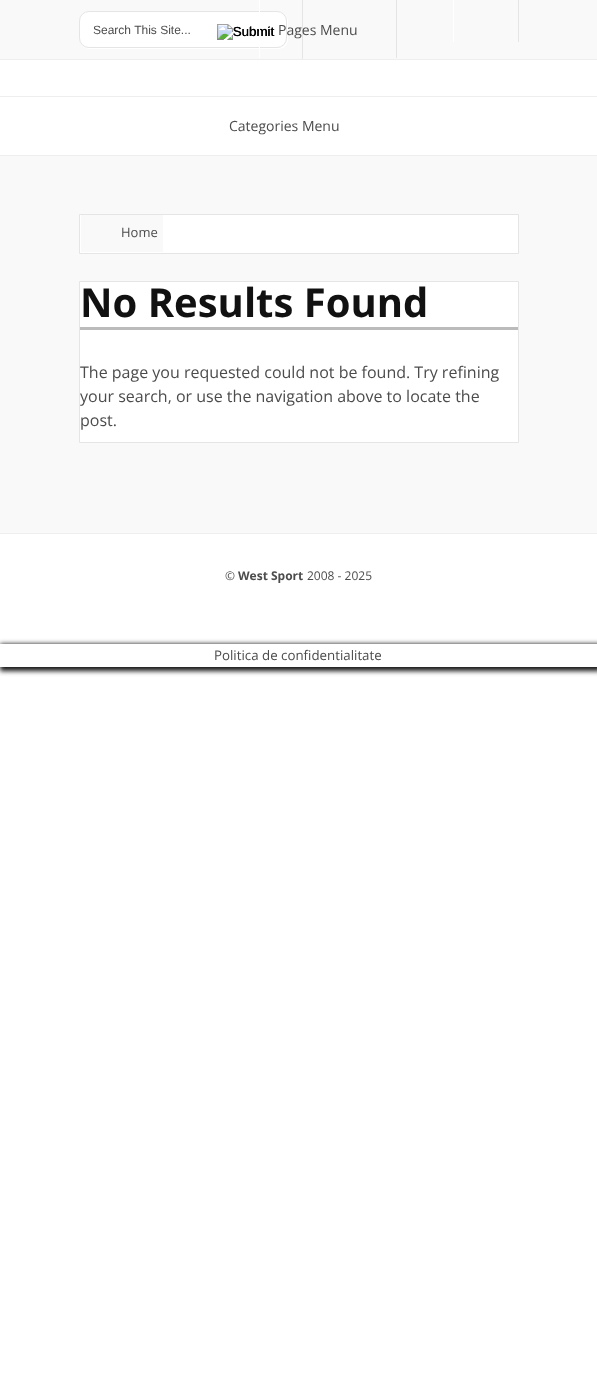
<svg xmlns="http://www.w3.org/2000/svg" width="597" height="1376">
<style>
.a{font:12px Liberation Sans;fill:#4c4c4c}
.b{font:13.3px Liberation Sans;fill:#000}
.c{font:14px Open Sans;fill:#4c4c4c}
.d{font:13px Open Sans;fill:#4c4c4c}
.e{font:bold 40px Open Sans;fill:#111}
.f{font:16px Open Sans;fill:#4c4c4c}
.g{font:12px Open Sans;fill:#4c4c4c}
.h{font:bold 12px Open Sans;fill:#4c4c4c}
.i{font:13.3px Open Sans;fill:#4c4c4c}
</style>
<defs>
<clipPath id="clip1"><path d="M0 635h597v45h-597zm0 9h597v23h-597z" clip-rule="evenodd"/></clipPath>
</defs>
<rect width="100%" height="100%" fill="#fff"/>
<path fill="#f9f9f9" d="M0 0h597v59H0z"/>
<path fill="#eee" d="M0 59h597v1H0z"/>
<path fill="#e5e5e5" d="M302 0h1v59H302z"/>
<path fill="#fff" d="M82 46c2 2 5 3 8 3h188c6 0 10-4 10-10v-17c0-3-1-6-3-8c1 2 2 4 2 7v17c0 6-4 10-10 10h-188c-3 0-5-1-7-2z"/>
<rect fill="#fff" stroke="#e5e5e5" x="79.5" y="11.5" width="207" height="36" rx="9.5"/>
<image href="1.png" x="217" y="24" width="57" height="16"/>
<path fill="#e5e5e5" d="M396 0h1v58H396z"/>
<path fill="#e5e5e5" d="M518 0h1v42H518z"/>
<path fill="#fff" d="M453 0h1v42H453z"/>
<path fill="#eee" d="M0 96h597v1H0z"/>
<path fill="#eee" d="M0 155h597v1H0z"/>
<path fill="#f9f9f9" d="M0 156h597v377H0z"/>
<path fill="#eee" d="M0 533h597v1H0z"/>
<path fill="#fff" stroke="#e5e5e5" d="M79.5 214.5h439v39H79.5z"/>
<path fill="#f9f9f9" d="M81 215h82v37H81z"/>
<path fill="#fff" stroke="#e5e5e5" d="M79.5 281.5h439v161H79.5z"/>
<path fill="#bbb" d="M80 327h438v3H80z"/>
<g clip-path="url(#clip1)">
<path fill="#161616" filter="blur(2.5px)" d="M0 644h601v27H0z"/>
</g>
<text class="a" x="93" y="34">Search This Site...</text>
<text class="b" x="233" y="36">Submit</text>
<path fill="#fff" d="M259 0h1v58H259z"/>
<text class="c" x="278" y="35">Pages Menu</text>
<text class="c" x="229" y="131">Categories Menu</text>
<text class="d" x="121" y="237">Home</text>
<text class="e" x="80" y="317">No Results Found</text>
<text class="f" x="80" y="378">The page you requested could not be found. Try refining</text>
<text class="f" x="80" y="402">your search, or use the navigation above to locate the</text>
<text class="f" x="80" y="426">post.</text>
<text class="g" x="225" y="580">©</text>
<text class="h" x="238" y="580">West Sport</text>
<text class="g" x="307" y="580">2008 - 2025</text>
<text class="i" x="214" y="660">Politica de confidentialitate</text>
</svg>
